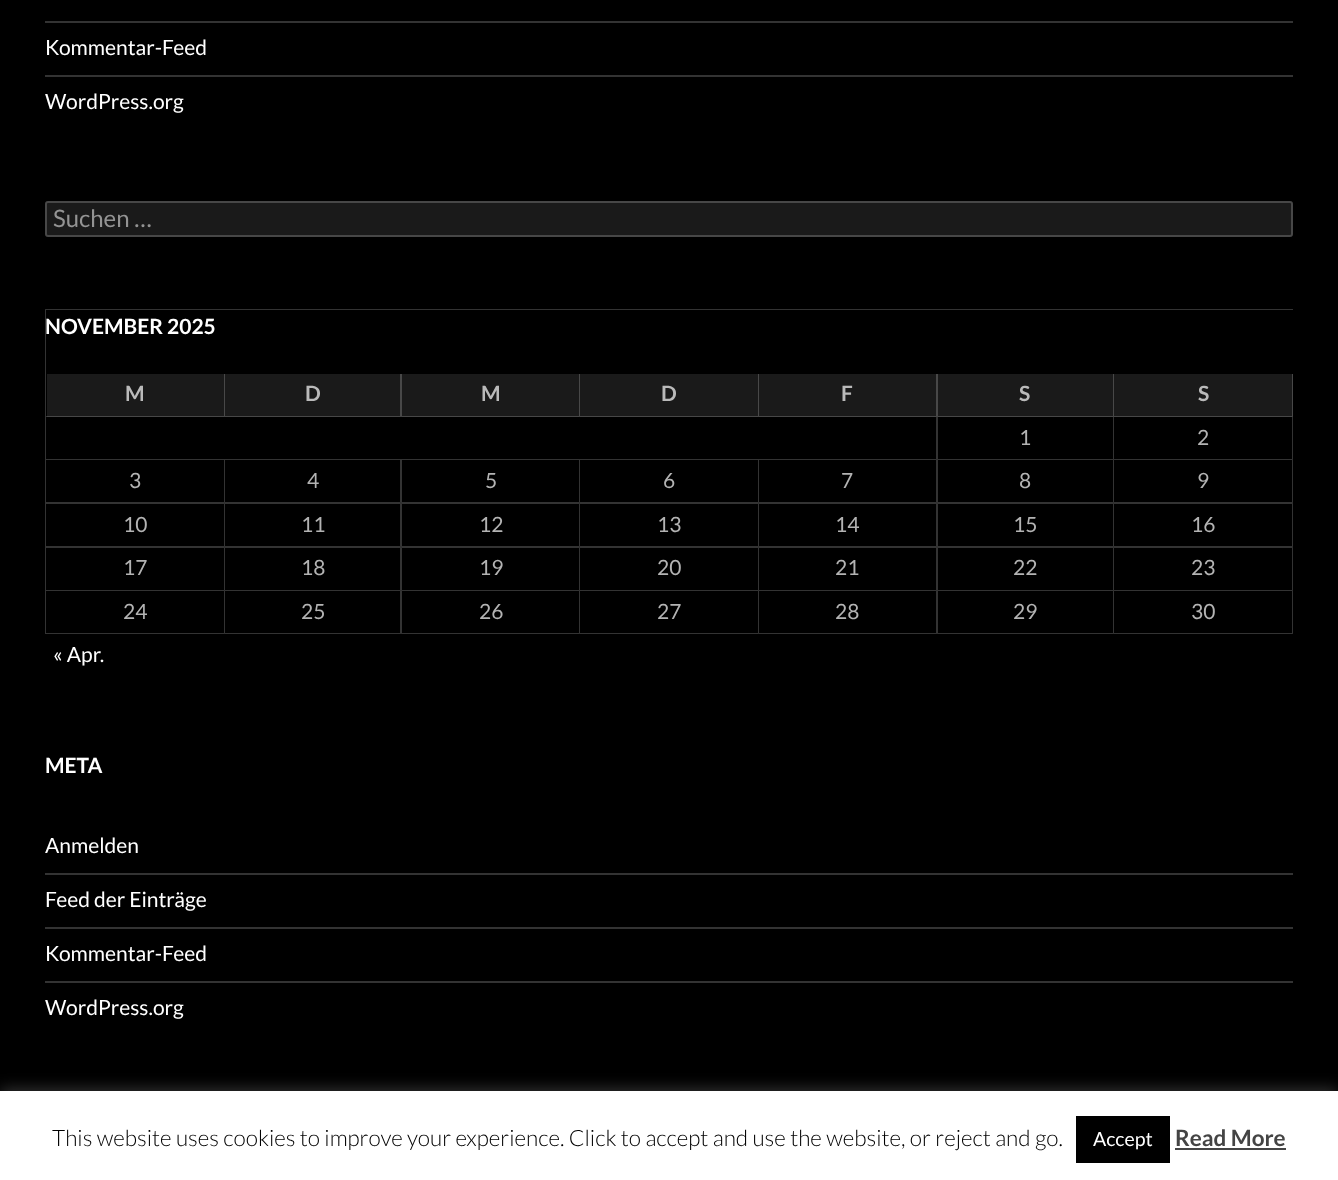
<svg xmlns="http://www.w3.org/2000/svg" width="1338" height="1180">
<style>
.a{font:21px Lato;fill:#fff}
.b{font:24px Lato;fill:#939393}
.c{font:bold 21px Lato;fill:#fff}
.d{font:bold 21px Lato;fill:#bababa}
.e{font:21px Lato;fill:#b3b3b3}
.f{font:300 22.5px Lato;fill:#000}
.g{font:19.5px Lato;fill:#fff}
.h{font:bold 22.5px Lato;fill:#444}
</style>
<rect width="100%" height="100%" fill="#000"/>
<path fill="#333" d="M45 21h1248v2H45z"/>
<path fill="#333" d="M45 75h1248v2H45z"/>
<rect fill="#1a1a1a" x="45" y="201" width="1248" height="36" rx="3"/>
<rect fill="none" stroke="#ffffff33" stroke-width="2" x="46" y="202" width="1246" height="34" rx="2"/>
<path fill="#333" d="M45 309h1248v1h-1247z"/>
<path fill="#ffffff33" d="M45 634v-325l1 1v324z"/>
<path fill="#1a1a1a" d="M47 374h1246v43H47z"/>
<path fill="#484848" d="M225 374v43l-1-1v-42z"/>
<path fill="#ffffff33" d="M225 417h-179v-1h178z"/>
<path fill="#484848" d="M402 374v43l-2-1v-42z"/>
<path fill="#ffffff33" d="M402 417h-177v-1h175z"/>
<path fill="#484848" d="M580 374v43l-1-1v-42z"/>
<path fill="#ffffff33" d="M580 417h-178v-1h177z"/>
<path fill="#484848" d="M759 374v43l-1-1v-42z"/>
<path fill="#ffffff33" d="M759 417h-179v-1h178z"/>
<path fill="#484848" d="M938 374v43l-2-1v-42z"/>
<path fill="#ffffff33" d="M938 417h-179v-1h177z"/>
<path fill="#484848" d="M1114 374v43l-1-1v-42z"/>
<path fill="#ffffff33" d="M1114 417h-176v-1h175z"/>
<path fill="#484848" d="M1293 374v43l-1-1v-42z"/>
<path fill="#ffffff33" d="M1293 417h-179v-1h178z"/>
<path fill="#333" d="M938 417v43l-2-1v-42z"/>
<path fill="#ffffff33" d="M938 460h-892v-1h890z"/>
<path fill="#333" d="M1114 417v43l-1-1v-42z"/>
<path fill="#ffffff33" d="M1114 460h-176v-1h175z"/>
<path fill="#333" d="M1293 417v43l-1-1v-42z"/>
<path fill="#ffffff33" d="M1293 460h-179v-1h178z"/>
<path fill="#333" d="M225 460v44l-1-2v-42z"/>
<path fill="#ffffff33" d="M225 504h-179v-2h178z"/>
<path fill="#333" d="M402 460v44l-2-2v-42z"/>
<path fill="#ffffff33" d="M402 504h-177v-2h175z"/>
<path fill="#333" d="M580 460v44l-1-2v-42z"/>
<path fill="#ffffff33" d="M580 504h-178v-2h177z"/>
<path fill="#333" d="M759 460v44l-1-2v-42z"/>
<path fill="#ffffff33" d="M759 504h-179v-2h178z"/>
<path fill="#333" d="M938 460v44l-2-2v-42z"/>
<path fill="#ffffff33" d="M938 504h-179v-2h177z"/>
<path fill="#333" d="M1114 460v44l-1-2v-42z"/>
<path fill="#ffffff33" d="M1114 504h-176v-2h175z"/>
<path fill="#333" d="M1293 460v44l-1-2v-42z"/>
<path fill="#ffffff33" d="M1293 504h-179v-2h178z"/>
<path fill="#333" d="M225 504v44l-1-2v-42z"/>
<path fill="#ffffff33" d="M225 548h-179v-2h178z"/>
<path fill="#333" d="M402 504v44l-2-2v-42z"/>
<path fill="#ffffff33" d="M402 548h-177v-2h175z"/>
<path fill="#333" d="M580 504v44l-1-2v-42z"/>
<path fill="#ffffff33" d="M580 548h-178v-2h177z"/>
<path fill="#333" d="M759 504v44l-1-2v-42z"/>
<path fill="#ffffff33" d="M759 548h-179v-2h178z"/>
<path fill="#333" d="M938 504v44l-2-2v-42z"/>
<path fill="#ffffff33" d="M938 548h-179v-2h177z"/>
<path fill="#333" d="M1114 504v44l-1-2v-42z"/>
<path fill="#ffffff33" d="M1114 548h-176v-2h175z"/>
<path fill="#333" d="M1293 504v44l-1-2v-42z"/>
<path fill="#ffffff33" d="M1293 548h-179v-2h178z"/>
<path fill="#333" d="M225 548v43l-1-1v-42z"/>
<path fill="#ffffff33" d="M225 591h-179v-1h178z"/>
<path fill="#333" d="M402 548v43l-2-1v-42z"/>
<path fill="#ffffff33" d="M402 591h-177v-1h175z"/>
<path fill="#333" d="M580 548v43l-1-1v-42z"/>
<path fill="#ffffff33" d="M580 591h-178v-1h177z"/>
<path fill="#333" d="M759 548v43l-1-1v-42z"/>
<path fill="#ffffff33" d="M759 591h-179v-1h178z"/>
<path fill="#333" d="M938 548v43l-2-1v-42z"/>
<path fill="#ffffff33" d="M938 591h-179v-1h177z"/>
<path fill="#333" d="M1114 548v43l-1-1v-42z"/>
<path fill="#ffffff33" d="M1114 591h-176v-1h175z"/>
<path fill="#333" d="M1293 548v43l-1-1v-42z"/>
<path fill="#ffffff33" d="M1293 591h-179v-1h178z"/>
<path fill="#333" d="M225 591v43l-1-1v-42z"/>
<path fill="#ffffff33" d="M225 634h-179v-1h178z"/>
<path fill="#333" d="M402 591v43l-2-1v-42z"/>
<path fill="#ffffff33" d="M402 634h-177v-1h175z"/>
<path fill="#333" d="M580 591v43l-1-1v-42z"/>
<path fill="#ffffff33" d="M580 634h-178v-1h177z"/>
<path fill="#333" d="M759 591v43l-1-1v-42z"/>
<path fill="#ffffff33" d="M759 634h-179v-1h178z"/>
<path fill="#333" d="M938 591v43l-2-1v-42z"/>
<path fill="#ffffff33" d="M938 634h-179v-1h177z"/>
<path fill="#333" d="M1114 591v43l-1-1v-42z"/>
<path fill="#ffffff33" d="M1114 634h-176v-1h175z"/>
<path fill="#333" d="M1293 591v43l-1-1v-42z"/>
<path fill="#ffffff33" d="M1293 634h-179v-1h178z"/>
<path fill="#333" d="M45 873h1248v2H45z"/>
<path fill="#333" d="M45 927h1248v2H45z"/>
<path fill="#333" d="M45 981h1248v2H45z"/>
<path fill="#acabab4d" filter="blur(7.5px)" d="M0 1089h1338v90H0z"/>
<path fill="#fff" d="M0 1091h1338v89H0z"/>
<path fill="#000" d="M1076 1116h94v47H1076z"/>
<path fill="#444" d="M1175 1148h111v2H1175z"/>
<text class="a" x="45" y="55">Kommentar-Feed</text>
<text class="a" x="45" y="109">WordPress.org</text>
<text class="b" x="53" y="227">Suchen …</text>
<text class="c" x="45" y="334">NOVEMBER 2025</text>
<text class="d" x="125" y="401">M</text>
<text class="d" x="305" y="401">D</text>
<text class="d" x="481" y="401">M</text>
<text class="d" x="661" y="401">D</text>
<text class="d" x="841" y="401">F</text>
<text class="d" x="1019" y="401">S</text>
<text class="d" x="1198" y="401">S</text>
<text class="e" x="1019" y="445">1</text>
<text class="e" x="1197" y="445">2</text>
<text class="e" x="129" y="488">3</text>
<text class="e" x="307" y="488">4</text>
<text class="e" x="485" y="488">5</text>
<text class="e" x="663" y="488">6</text>
<text class="e" x="841" y="488">7</text>
<text class="e" x="1019" y="488">8</text>
<text class="e" x="1197" y="488">9</text>
<text class="e" x="123" y="532">10</text>
<text class="e" x="301" y="532">11</text>
<text class="e" x="479" y="532">12</text>
<text class="e" x="657" y="532">13</text>
<text class="e" x="835" y="532">14</text>
<text class="e" x="1013" y="532">15</text>
<text class="e" x="1191" y="532">16</text>
<text class="e" x="123" y="575">17</text>
<text class="e" x="301" y="575">18</text>
<text class="e" x="479" y="575">19</text>
<text class="e" x="657" y="575">20</text>
<text class="e" x="835" y="575">21</text>
<text class="e" x="1013" y="575">22</text>
<text class="e" x="1191" y="575">23</text>
<text class="e" x="123" y="619">24</text>
<text class="e" x="301" y="619">25</text>
<text class="e" x="479" y="619">26</text>
<text class="e" x="657" y="619">27</text>
<text class="e" x="835" y="619">28</text>
<text class="e" x="1013" y="619">29</text>
<text class="e" x="1191" y="619">30</text>
<text class="a" x="53" y="662">« Apr.</text>
<text class="c" x="45" y="773">META</text>
<text class="a" x="45" y="853">Anmelden</text>
<text class="a" x="45" y="907">Feed der Einträge</text>
<text class="a" x="45" y="961">Kommentar-Feed</text>
<text class="a" x="45" y="1015">WordPress.org</text>
<text class="f" x="52" y="1146">This website uses cookies to improve your experience. Click to accept and use the website, or reject and go.</text>
<text class="g" x="1093" y="1146">Accept</text>
<text class="h" x="1175" y="1146">Read More</text>
</svg>
